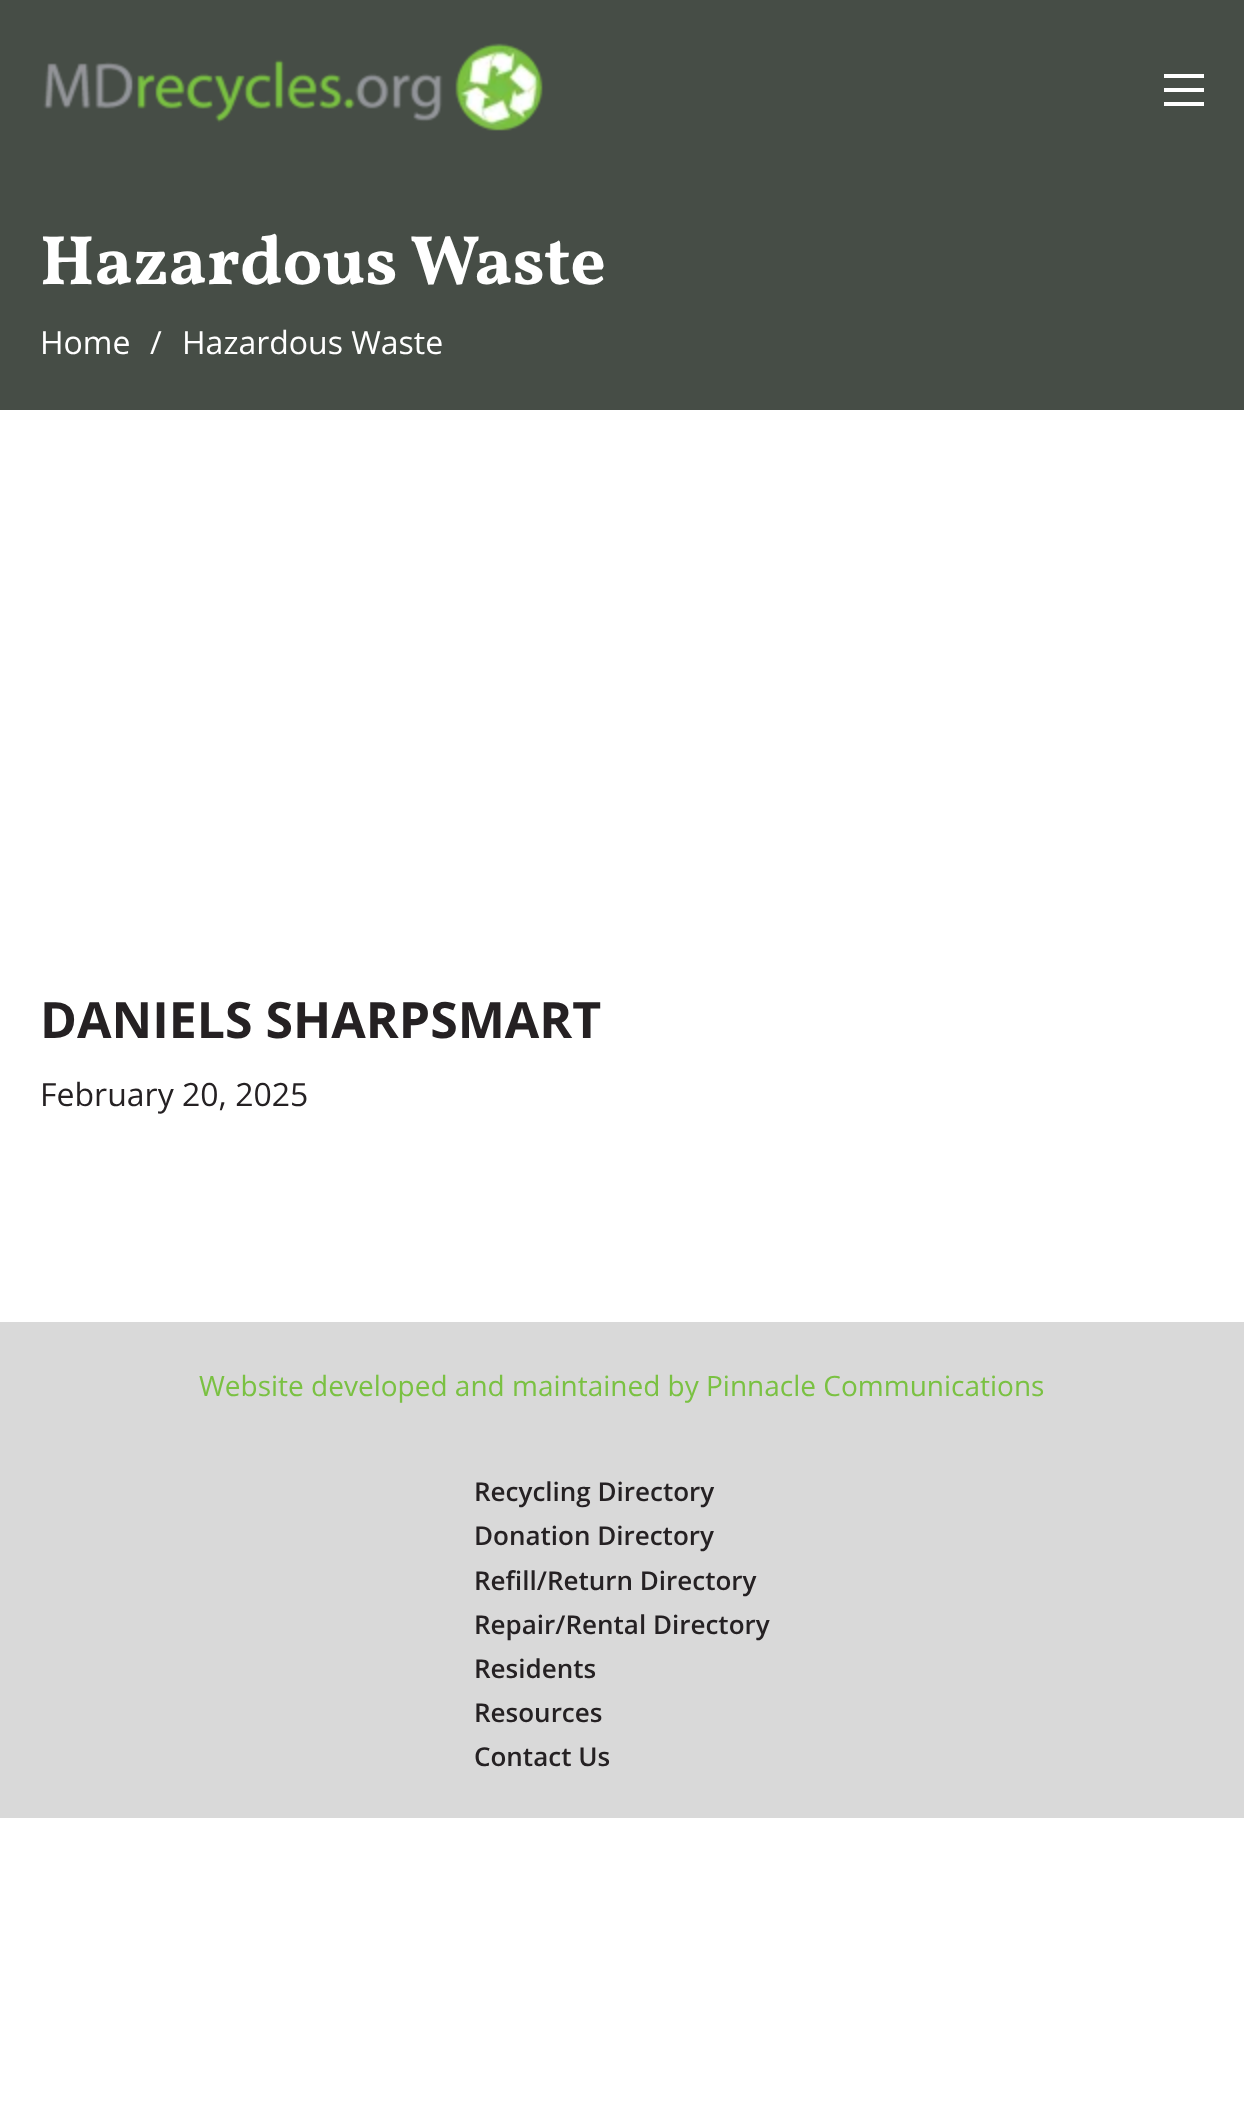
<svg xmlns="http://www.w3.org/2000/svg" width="1244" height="2120">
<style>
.a{font:bold 70px Vollkorn;fill:#fff}
.b{font:32px Open Sans;fill:#fff}
.c{font:bold 50px Open Sans;fill:#252123}
.d{font:32px Open Sans;fill:#252123}
.e{font:28px Open Sans;fill:#7ac142}
.f{font:600 26px Open Sans;fill:#252123}
</style>
<rect width="100%" height="100%" fill="#fff"/>
<path fill="#464d46" d="M0 0h1244v410H0z"/>
<image href="1.png" x="43" y="43" width="500" height="88"/>
<path fill="#fff" d="M1164 74h40v4H1164z"/>
<path fill="#fff" d="M1164 88h40v4H1164z"/>
<path fill="#fff" d="M1164 102h40v4H1164z"/>
<path fill="#d9d9d9" d="M0 1322h1244v496H0z"/>
<text class="a" x="40" y="284">Hazardous Waste</text>
<text class="b" x="40" y="354">Home</text>
<text class="b" x="150" y="354">/</text>
<text class="b" x="182" y="354">Hazardous Waste</text>
<text class="c" x="40" y="1038">DANIELS SHARPSMART</text>
<text class="d" x="40" y="1106">February 20, 2025</text>
<text class="e" x="199" y="1396">Website developed and maintained by Pinnacle Communications</text>
<text class="f" x="474" y="1501">Recycling Directory</text>
<text class="f" x="474" y="1545">Donation Directory</text>
<text class="f" x="474" y="1590">Refill/Return Directory</text>
<text class="f" x="474" y="1634">Repair/Rental Directory</text>
<text class="f" x="474" y="1678">Residents</text>
<text class="f" x="474" y="1722">Resources</text>
<text class="f" x="474" y="1766">Contact Us</text>
</svg>
